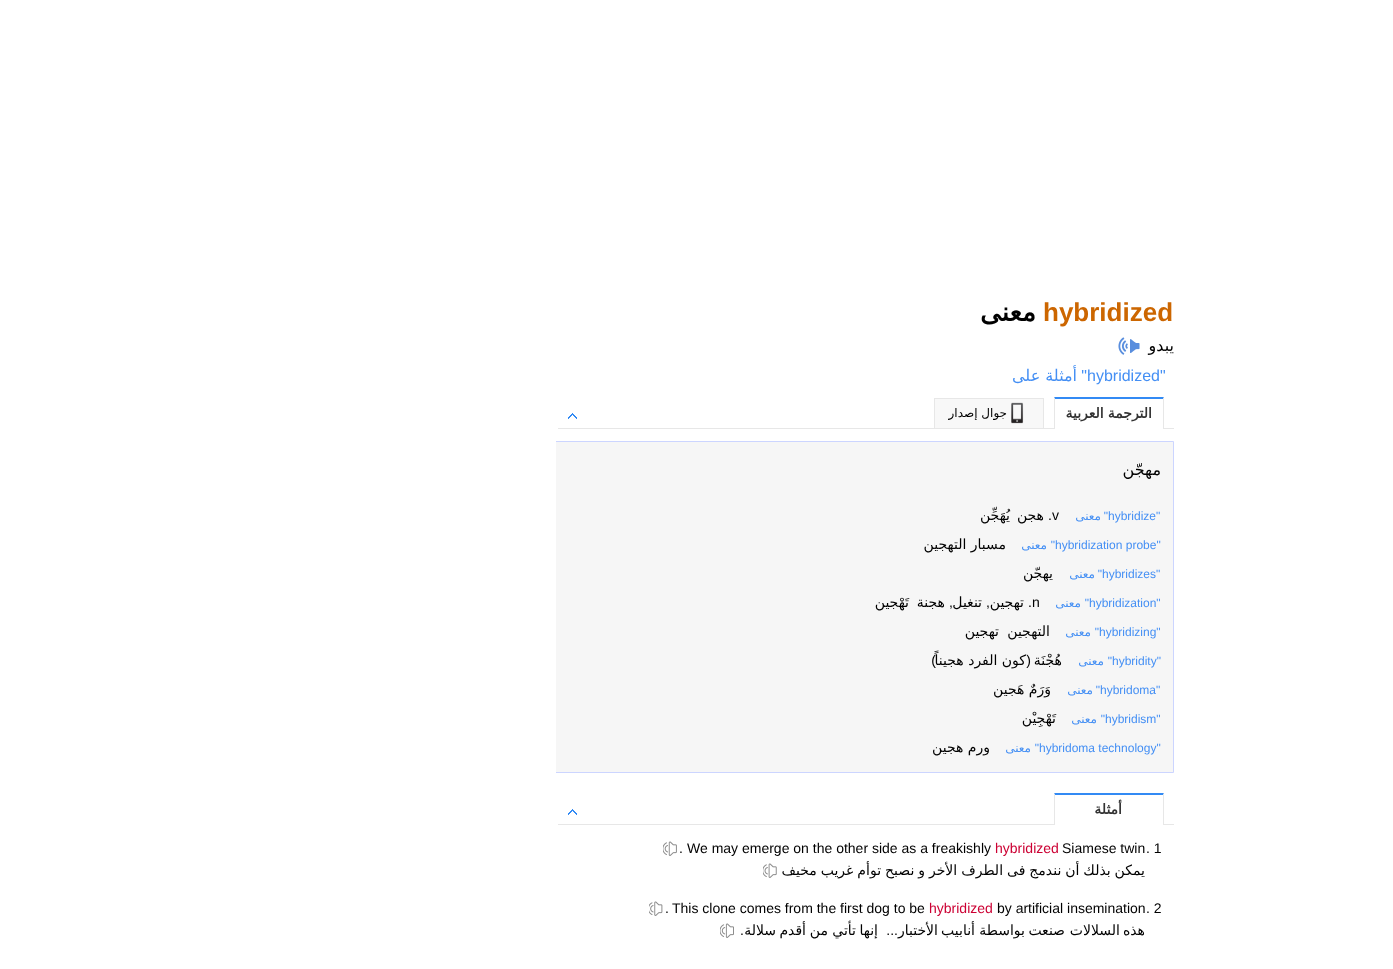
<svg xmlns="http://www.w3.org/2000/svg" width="1393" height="969">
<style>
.a{font:bold 26px Liberation Sans;fill:#c60}
.b{font:bold 26px DejaVu Sans;direction:rtl;fill:#000}
.c{font:16px DejaVu Sans;direction:rtl;fill:#000}
.d{font:16px Liberation Sans;fill:#448ff4}
.e{font:16px Liberation Sans;direction:rtl;fill:#448ff4}
.f{font:16px DejaVu Sans;direction:rtl;fill:#448ff4}
.g{font:bold 14px DejaVu Sans;direction:rtl;fill:#333}
.h{font:12px DejaVu Sans;direction:rtl;fill:#000}
.i{font:12px Liberation Sans;fill:#448ff4}
.j{font:12px Liberation Sans;direction:rtl;fill:#448ff4}
.k{font:12px DejaVu Sans;direction:rtl;fill:#448ff4}
.l{font:14px Liberation Sans;fill:#000}
.m{font:14px Liberation Sans;direction:rtl;fill:#000}
.n{font:14px DejaVu Sans;direction:rtl;fill:#000}
.o{font:14px Liberation Sans;fill:#c03}
</style>
<defs>
<clipPath id="clip1"><path d="M556 291h626v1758H556z"/></clipPath>
</defs>
<rect width="100%" height="100%" fill="#fff"/>
<image href="1.png" x="1118" y="337" width="22" height="18"/>
<path fill="#e7e7e7" d="M558 428h616v1H558z"/>
<path fill="#fff" d="M1054 428h110v1H1054z"/>
<path fill="#328af4" d="M1054 397h110l-1 2h-108z"/>
<path fill="#e7e7e7" d="M1164 397v32h-1v-30z"/>
<path fill="#e7e7e7" d="M1054 429v-32l1 2v30z"/>
<path fill="#f8f8f8" d="M935 399h108v29H935z"/>
<path fill="#e7e7e7" d="M934 398h110v1H934z"/>
<path fill="#e7e7e7" d="M1043 398h1v30H1043z"/>
<path fill="#e7e7e7" d="M934 398h1v30H934z"/>
<image href="2.png" x="1011" y="402" width="13" height="22"/>
<image href="3.png" x="568" y="413" width="9" height="6"/>
<path fill="#f6f6f6" d="M556 442h617v330H556z"/>
<g clip-path="url(#clip1)">
<path fill="none" stroke="#ccd5ff" d="M552.5 441.5h621v331H552.5z"/>
</g>
<path fill="#e7e7e7" d="M558 824h616v1H558z"/>
<path fill="#fff" d="M1054 824h110v1H1054z"/>
<path fill="#328af4" d="M1054 793h110l-1 2h-108z"/>
<path fill="#e7e7e7" d="M1164 793v32h-1v-30z"/>
<path fill="#e7e7e7" d="M1054 825v-32l1 2v30z"/>
<image href="3.png" x="568" y="809" width="9" height="6"/>
<image href="4.png" x="663" y="841" width="14" height="15"/>
<image href="5.png" x="763" y="863" width="14" height="15"/>
<image href="6.png" x="649" y="901" width="14" height="15"/>
<image href="7.png" x="720" y="923" width="14" height="15"/>
<text class="a" x="1043" y="321">hybridized</text>
<text class="b" x="1036" y="321">معنى</text>
<text class="c" x="1174" y="351">يبدو</text>
<text class="d" x="1087" y="381">hybridized"</text>
<text class="e" x="1087" y="381">"</text>
<text class="f" x="1077" y="381">أمثلة على</text>
<text class="g" x="1152" y="418" word-spacing="-0.5">الترجمة العربية</text>
<text class="h" x="1007" y="417">جوال إصدار</text>
<text class="c" x="1161" y="475">مهجّن</text>
<text class="i" x="1108" y="520">hybridize"</text>
<text class="j" x="1108" y="520">"</text>
<text class="k" x="1101" y="520">معنى</text>
<text class="l" x="1052" y="520">v</text>
<text class="m" x="1052" y="520">.</text>
<text class="n" x="1044" y="520">هجن</text>
<text class="n" x="1010" y="520">يُهَجِّن</text>
<text class="i" x="1055" y="549">hybridization probe"</text>
<text class="j" x="1055" y="549">"</text>
<text class="k" x="1047" y="549">معنى</text>
<text class="n" x="1006" y="549">مسبار التهجين</text>
<text class="i" x="1102" y="578">hybridizes"</text>
<text class="j" x="1102" y="578">"</text>
<text class="k" x="1095" y="578">معنى</text>
<text class="n" x="1053" y="578">يهجّن</text>
<text class="i" x="1089" y="607">hybridization"</text>
<text class="j" x="1089" y="607">"</text>
<text class="k" x="1081" y="607">معنى</text>
<text class="l" x="1032" y="607">n</text>
<text class="m" x="1032" y="607">.</text>
<text class="n" x="1024" y="607">تهجين</text>
<text class="m" x="990" y="607">,</text>
<text class="n" x="982" y="607">تنغيل</text>
<text class="m" x="953" y="607">,</text>
<text class="n" x="945" y="607">هجنة</text>
<text class="n" x="909" y="607">تَهْجين</text>
<text class="i" x="1099" y="636">hybridizing"</text>
<text class="j" x="1099" y="636">"</text>
<text class="k" x="1091" y="636">معنى</text>
<text class="n" x="1050" y="636">التهجين</text>
<text class="n" x="999" y="636">تهجين</text>
<text class="i" x="1112" y="665">hybridity"</text>
<text class="j" x="1112" y="665">"</text>
<text class="k" x="1104" y="665">معنى</text>
<text class="n" x="1062" y="665">هُجْنَة</text>
<text class="m" x="1031" y="665">(</text>
<text class="n" x="1026" y="665">كون الفرد هجيناً</text>
<text class="m" x="936" y="665">)</text>
<text class="i" x="1100" y="694">hybridoma"</text>
<text class="j" x="1100" y="694">"</text>
<text class="k" x="1093" y="694">معنى</text>
<text class="n" x="1051" y="694">وَرَمٌ هَجين</text>
<text class="i" x="1105" y="723">hybridism"</text>
<text class="j" x="1105" y="723">"</text>
<text class="k" x="1097" y="723">معنى</text>
<text class="n" x="1056" y="723">تَهْجِيْن</text>
<text class="i" x="1039" y="752">hybridoma technology"</text>
<text class="j" x="1039" y="752">"</text>
<text class="k" x="1031" y="752">معنى</text>
<text class="n" x="990" y="752">ورم هجين</text>
<text class="g" x="1122" y="814">أمثلة</text>
<text class="l" x="1146" y="853">. 1</text>
<text class="l" x="1062" y="853">Siamese twin</text>
<text class="o" x="995" y="853">hybridized</text>
<text class="l" x="687" y="853">We may emerge on the other side as a freakishly</text>
<text class="l" x="679" y="853">.</text>
<text class="n" x="1145" y="875" word-spacing="-0.5">يمكن بذلك أن نندمج فى الطرف الأخر و نصبح توأم غريب مخيف</text>
<text class="l" x="1146" y="913">. 2</text>
<text class="l" x="997" y="913">by artificial insemination</text>
<text class="o" x="929" y="913">hybridized</text>
<text class="l" x="672" y="913">This clone comes from the first dog to be</text>
<text class="l" x="665" y="913">.</text>
<text class="n" x="1145" y="935">هذه</text>
<text class="n" x="1120" y="935">السلالات</text>
<text class="n" x="1065" y="935">صنعت</text>
<text class="n" x="1025" y="935">بواسطة</text>
<text class="n" x="975" y="935">أنابيب</text>
<text class="n" x="938" y="935">الأختبار</text>
<text class="m" x="898" y="935">... </text>
<text class="n" x="878" y="935">إنها</text>
<text class="n" x="856" y="935">تأتي</text>
<text class="n" x="828" y="935">من</text>
<text class="n" x="806" y="935">أقدم</text>
<text class="n" x="776" y="935">سلالة</text>
<text class="m" x="744" y="935">.</text>
</svg>
